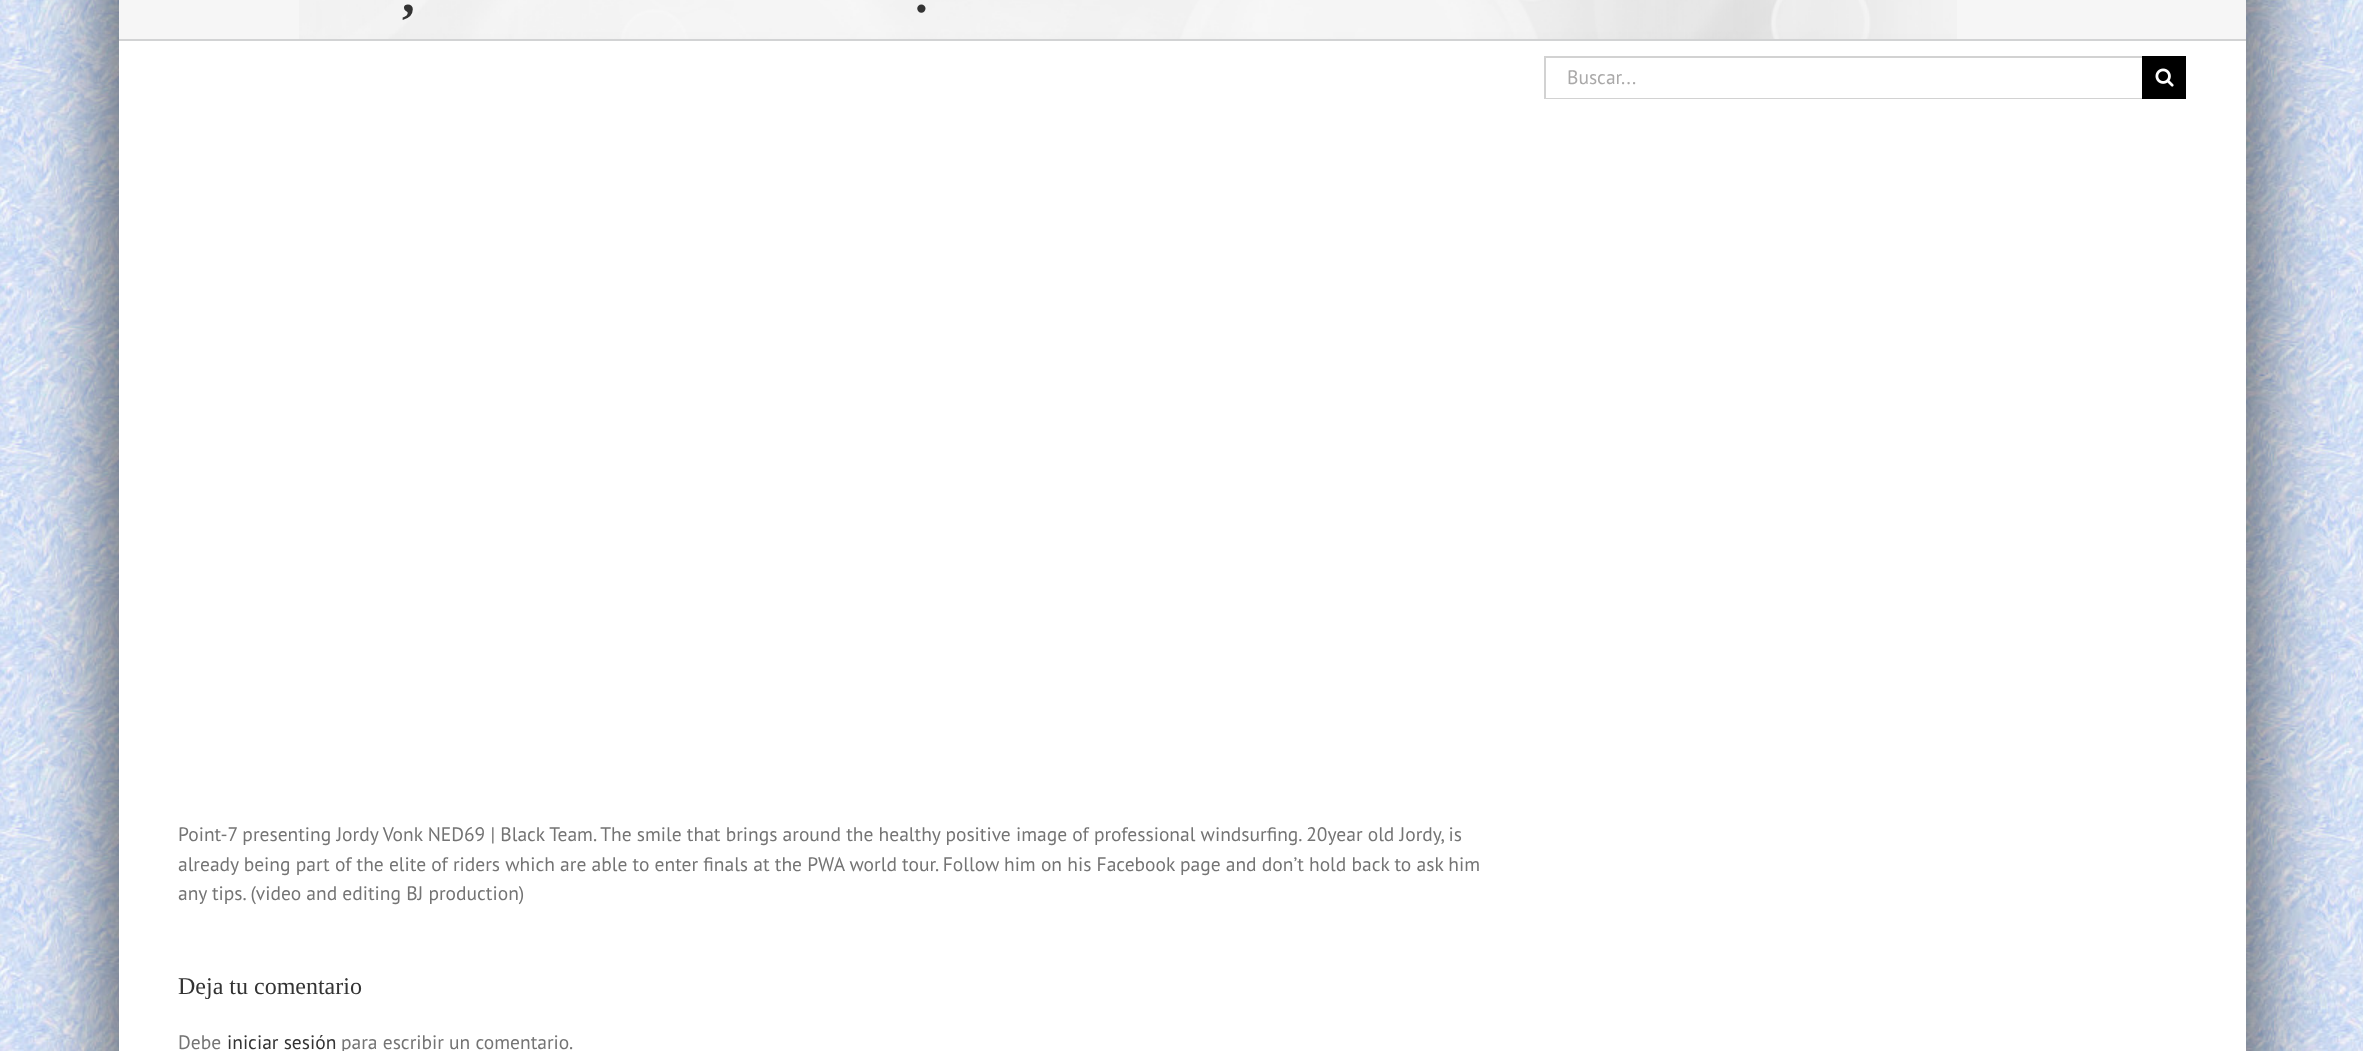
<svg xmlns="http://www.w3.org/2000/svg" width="2363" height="1051">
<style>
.a{font:bold 51px Liberation Serif;fill:#333}
.b{font:19.5px PT Sans;fill:#aaa9a9}
.c{font:19.5px PT Sans;fill:#747474}
.d{font:24px Liberation Serif;fill:#333}
.e{font:19.5px PT Sans;fill:#333}
</style>
<rect width="100%" height="100%" fill="#fff"/>
<image href="1.png" x="0" y="0" width="2363" height="1051"/>
<path fill="#0000008c" filter="blur(37.5px)" d="M104 -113h2157v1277H104z"/>
<path fill="#f6f6f6" d="M119 0h2127v39H119z"/>
<image href="2.png" x="299" y="0" width="1658" height="39"/>
<path fill="#d2d3d4" d="M119 39h2127v2H119z"/>
<path fill="#fff" d="M119 41h2127v1010H119z"/>
<path fill="#d2d2d2" d="M1544 56h598v2H1544z"/>
<path fill="#d2d2d2" d="M1544 98h598v1H1544z"/>
<path fill="#d2d2d2" d="M1544 56h2v43H1544z"/>
<path fill="#000" d="M2142 56h44v43H2142z"/>
<image href="3.png" x="2155" y="68" width="19" height="19"/>
<text class="a" x="402" y="12">,</text>
<text class="a" x="915" y="12">.</text>
<text class="b" x="1567" y="84">Buscar...</text>
<text class="c" x="178" y="841">Point-7 presenting Jordy Vonk NED69 | Black Team. The smile that brings around the healthy positive image of professional windsurfing. 20year old Jordy, is</text>
<text class="c" x="178" y="871">already being part of the elite of riders which are able to enter finals at the PWA world tour. Follow him on his Facebook page and don’t hold back to ask him</text>
<text class="c" x="178" y="900">any tips. (video and editing BJ production)</text>
<text class="d" x="178" y="994">Deja tu comentario</text>
<text class="c" x="178" y="1049">Debe</text>
<text class="e" x="227" y="1049">iniciar sesión</text>
<text class="c" x="341" y="1049">para escribir un comentario.</text>
</svg>
